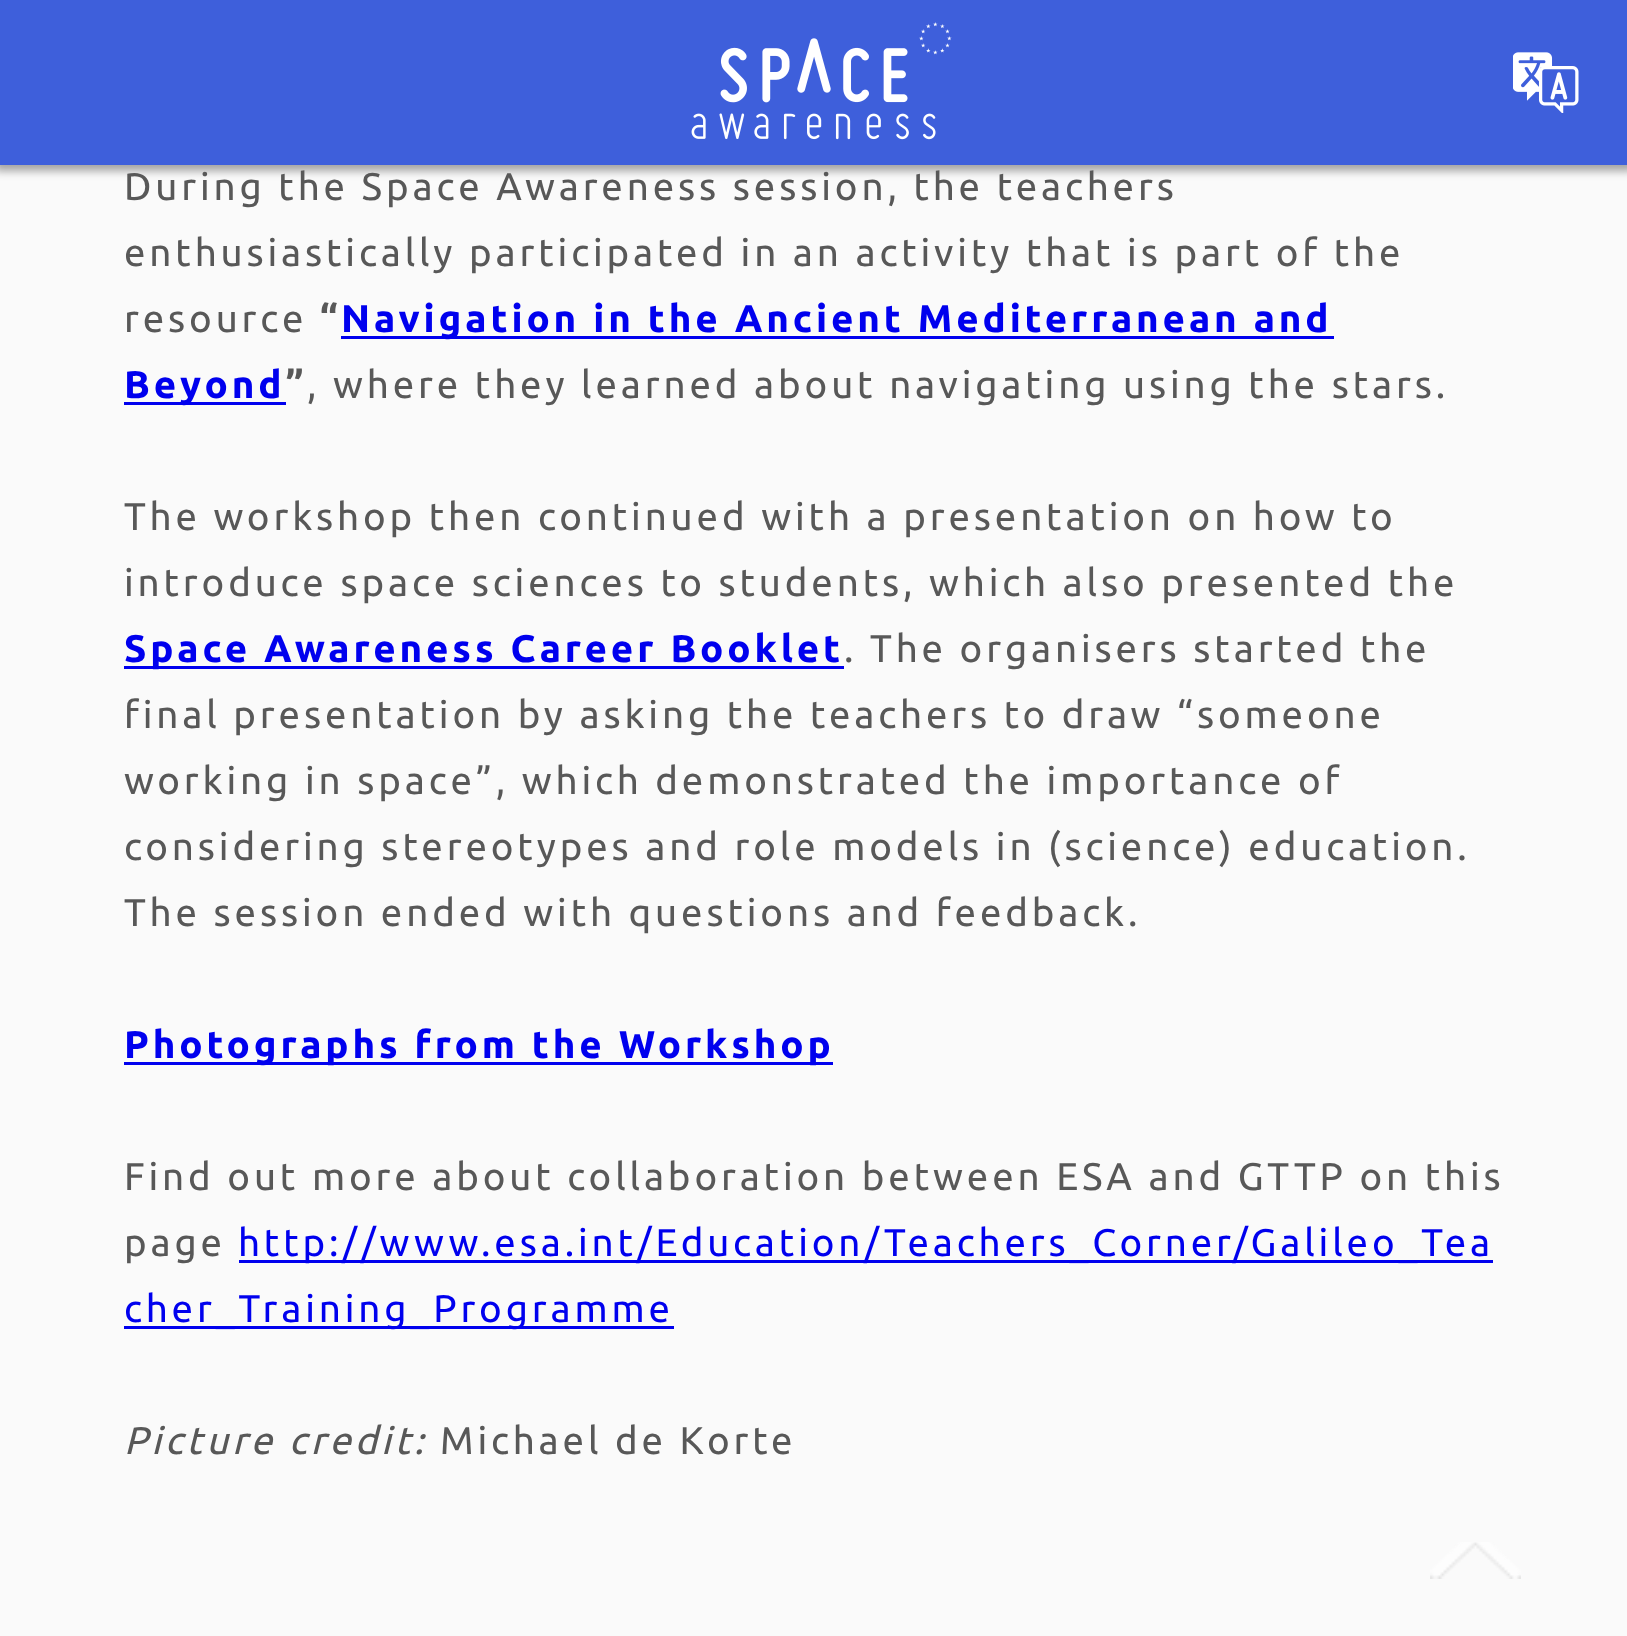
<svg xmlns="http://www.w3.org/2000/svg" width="1627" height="1636">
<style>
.a{font:38.5px Ubuntu;letter-spacing:3.85px;fill:#585858}
.b{font:bold 38.5px Ubuntu;letter-spacing:3.85px;fill:#585858}
.c{font:bold 38.5px Ubuntu;letter-spacing:3.85px;fill:#00e}
.d{font:38.5px Ubuntu;letter-spacing:3.85px;fill:#00e}
.e{font:italic 38.5px Ubuntu;letter-spacing:3.85px;fill:#585858}
</style>
<rect width="100%" height="100%" fill="#fafafa"/>
<path fill="#00000059" filter="blur(4px)" d="M-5 -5h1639v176H-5z"/>
<path fill="#3e5fdb" d="M0 0h1627v165H0z"/>
<image href="1.png" x="691" y="22" width="261" height="118"/>
<image href="2.png" x="1513" y="52" width="66" height="61"/>
<path fill="#00e" d="M341 336h993v3H341z"/>
<path fill="#00e" d="M124 402h162v3H124z"/>
<path fill="#00e" d="M124 666h720v3H124z"/>
<path fill="#00e" d="M124 1062h709v3H124z"/>
<path fill="#00e" d="M239 1260h1254v3H239z"/>
<path fill="#00e" d="M124 1326h550v3H124z"/>
<image href="3.png" x="1430" y="1542" width="91" height="37"/>
<text class="a" x="124" y="200">During the Space Awareness session, the teachers</text>
<text class="a" x="124" y="266">enthusiastically participated in an activity that is part of the</text>
<text class="a" x="124" y="332">resource</text>
<text class="b" x="320" y="332">“</text>
<text class="c" x="341" y="332">Navigation in the Ancient Mediterranean and</text>
<text class="c" x="124" y="398">Beyond</text>
<text class="b" x="286" y="398">”</text>
<text class="a" x="307" y="398">, where they learned about navigating using the stars.</text>
<text class="a" x="124" y="530">The workshop then continued with a presentation on how to</text>
<text class="a" x="124" y="596">introduce space sciences to students, which also presented the</text>
<text class="c" x="124" y="662">Space Awareness Career Booklet</text>
<text class="a" x="844" y="662">. The organisers started the</text>
<text class="a" x="124" y="728">final presentation by asking the teachers to draw “someone</text>
<text class="a" x="124" y="794">working in space”, which demonstrated the importance of</text>
<text class="a" x="124" y="860">considering stereotypes and role models in (science) education.</text>
<text class="a" x="124" y="926">The session ended with questions and feedback.</text>
<text class="c" x="124" y="1058">Photographs from the Workshop</text>
<text class="a" x="124" y="1190">Find out more about collaboration between ESA and GTTP on this</text>
<text class="a" x="124" y="1256">page</text>
<text class="d" x="238" y="1256">http://www.esa.int/Education/Teachers_Corner/Galileo_Tea</text>
<text class="d" x="124" y="1322">cher_Training_Programme</text>
<text class="e" x="124" y="1454">Picture credit:</text>
<text class="a" x="440" y="1454">Michael de Korte</text>
</svg>
